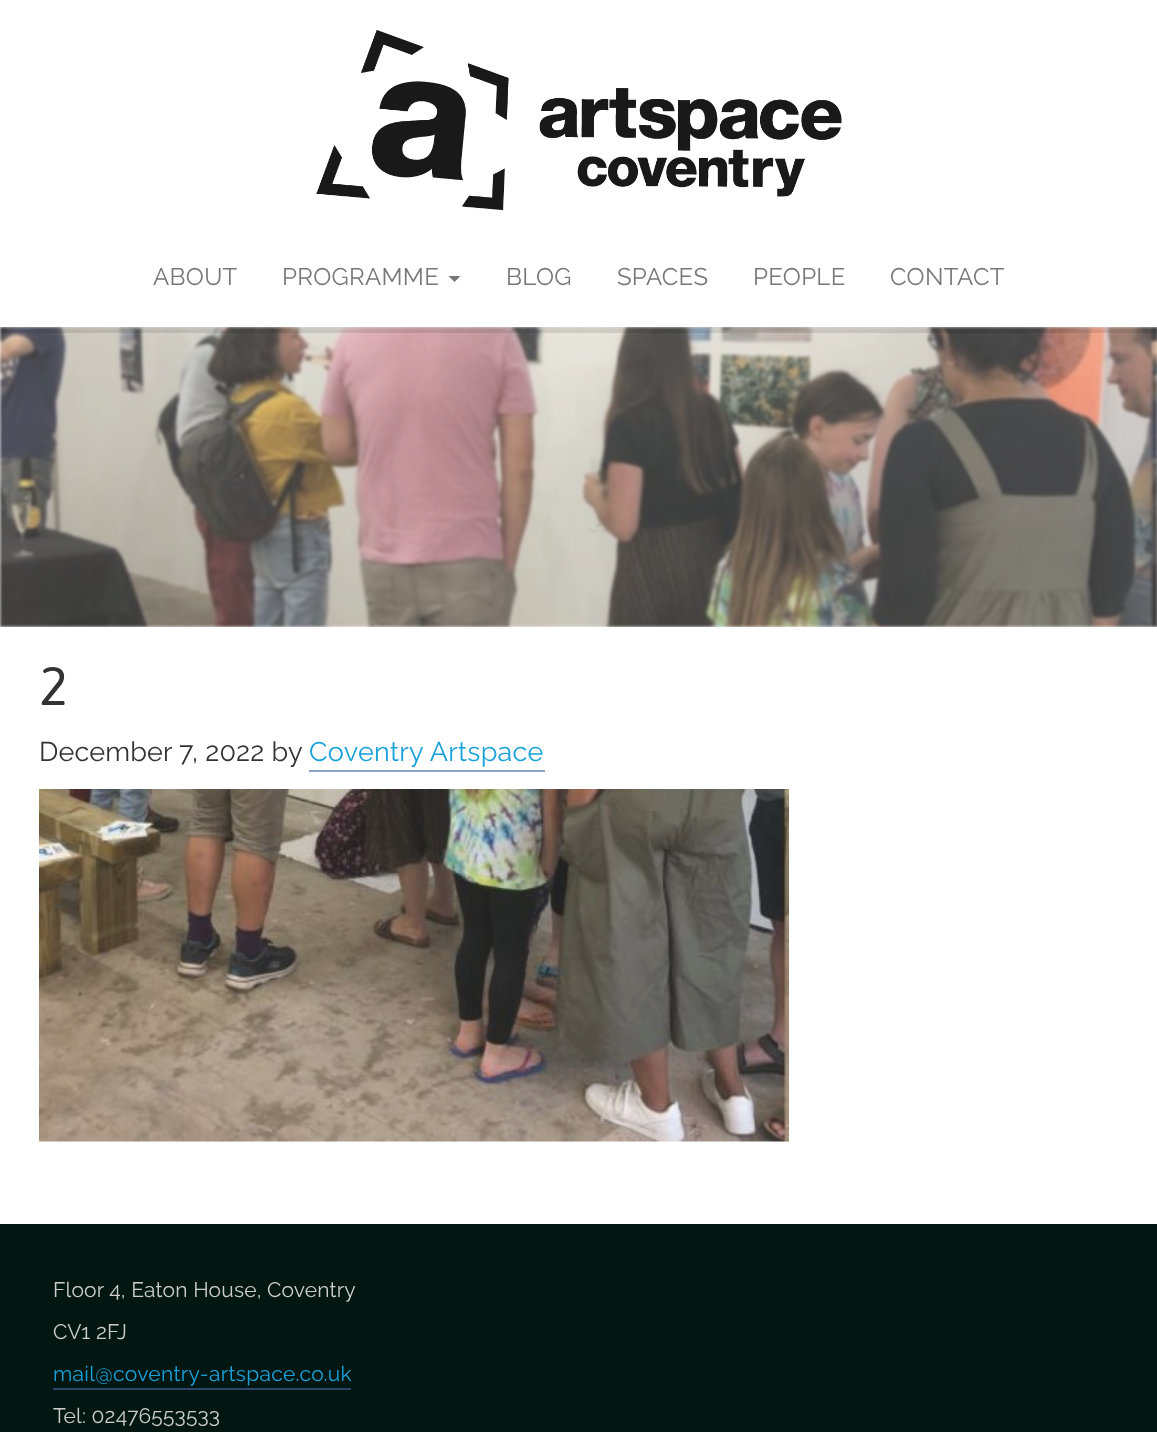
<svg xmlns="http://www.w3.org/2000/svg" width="1157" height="1432">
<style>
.a{font:100 24px Raleway;letter-spacing:0.3px;fill:#777}
.b{font:54px Asap;letter-spacing:0.15px;fill:#333}
.c{font:100 27px Raleway;letter-spacing:0.15px;fill:#333}
.d{font:100 27px Raleway;letter-spacing:0.3px;fill:#19a1db}
.e{font:100 21px Raleway;letter-spacing:0.15px;fill:#ccc}
.f{font:100 21px Raleway;letter-spacing:0.3px;fill:#19a1db}
</style>
<rect width="100%" height="100%" fill="#fff"/>
<image href="1.png" x="316" y="30" width="526" height="180"/>
<image href="2.png" x="0" y="327" width="1157" height="300"/>
<path fill="#0000001a" d="M0 327h1157v6H0z"/>
<path fill="#777" d="M448.5 276h12l-6 6z"/>
<path fill="#91a1ce" d="M309 770h236v2H309z"/>
<image href="3.png" x="39" y="789" width="750" height="353"/>
<path fill="#021712" d="M0 1224h1157v208H0z"/>
<path fill="#2c456f" d="M53 1388h298v2H53z"/>
<text class="a" x="153" y="285">ABOUT</text>
<text class="a" x="282" y="285">PROGRAMME</text>
<text class="a" x="506" y="285">BLOG</text>
<text class="a" x="617" y="285">SPACES</text>
<text class="a" x="753" y="285">PEOPLE</text>
<text class="a" x="890" y="285">CONTACT</text>
<text class="b" x="39" y="705">2</text>
<text class="c" x="39" y="761">December 7, 2022 by</text>
<text class="d" x="309" y="761">Coventry Artspace</text>
<text class="e" x="53" y="1297">Floor 4, Eaton House, Coventry</text>
<text class="e" x="53" y="1339">CV1 2FJ</text>
<text class="f" x="53" y="1381">mail@coventry-artspace.co.uk</text>
<text class="e" x="53" y="1423">Tel: 02476553533</text>
</svg>
